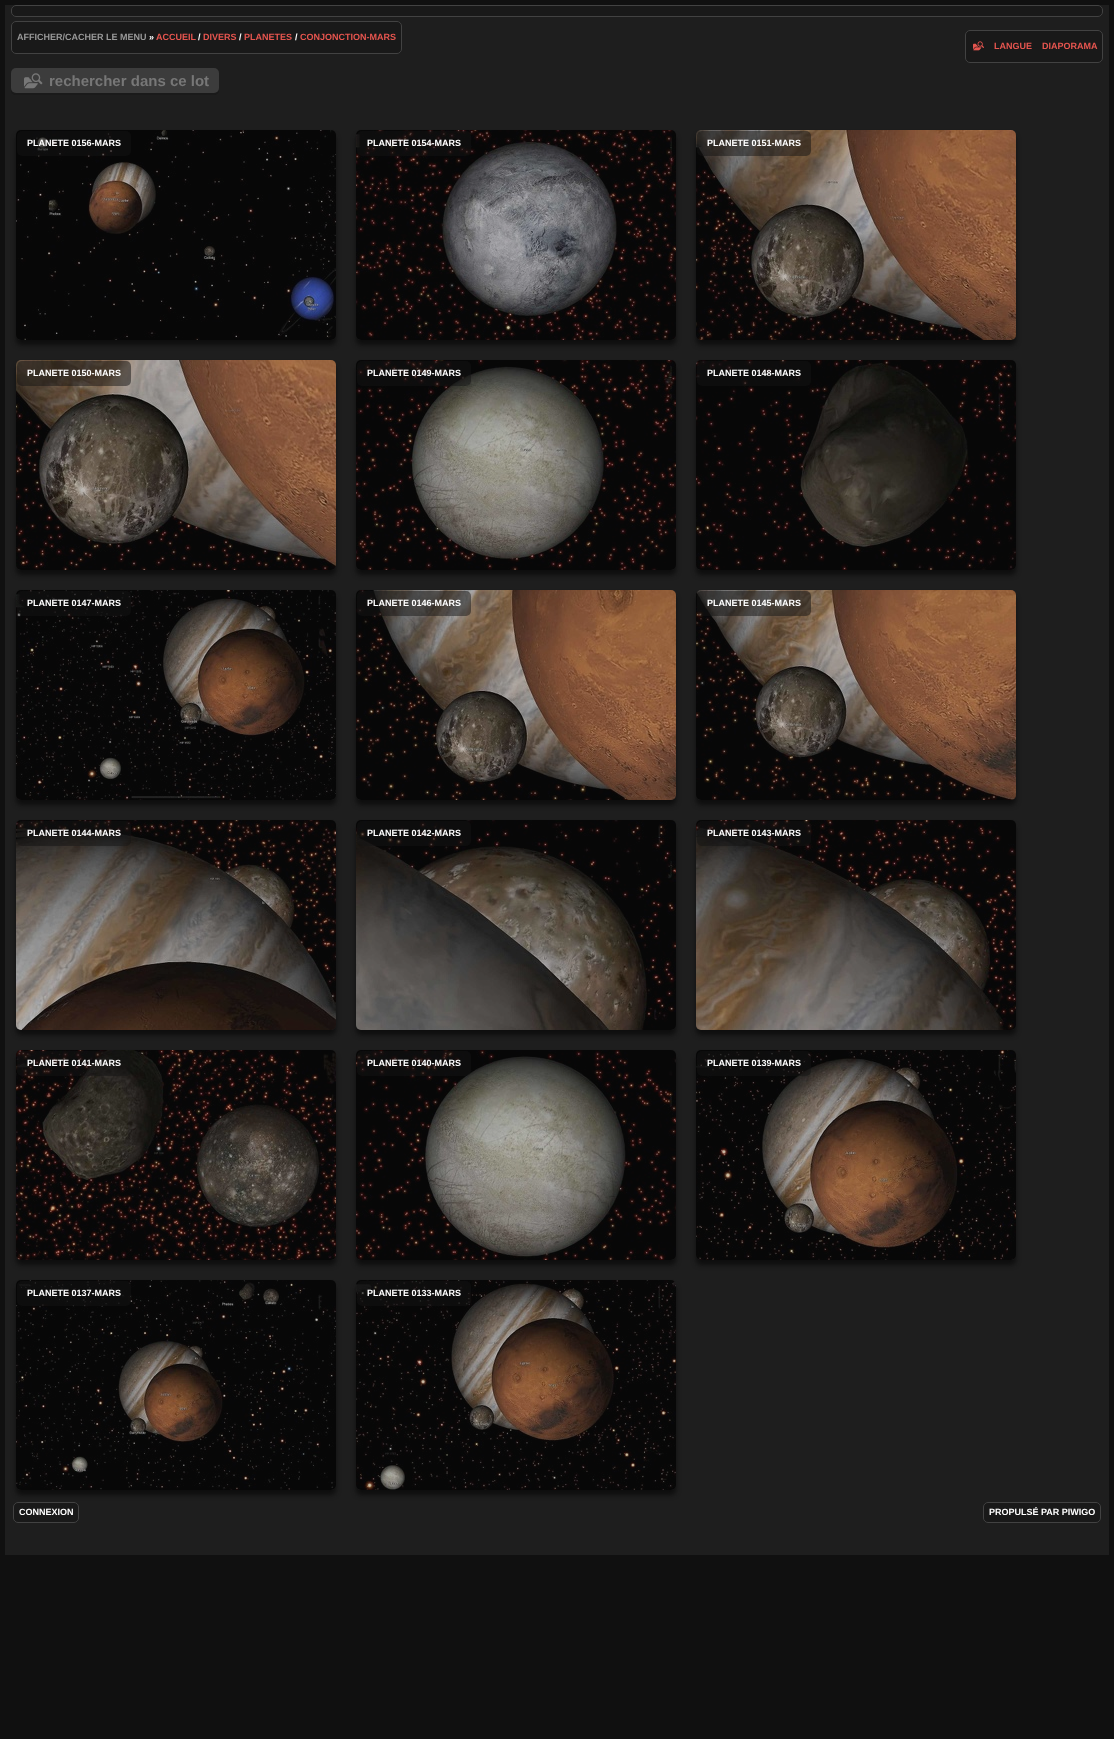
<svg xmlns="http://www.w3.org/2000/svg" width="1114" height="1739">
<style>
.a{font:bold 9px Liberation Sans;fill:#999}
.b{font:bold 9px Liberation Sans;fill:#fff}
.c{font:bold 9px Liberation Sans;fill:#e6554f}
.d{font:bold 15px Liberation Sans;fill:#777}
</style>
<defs>
<clipPath id="clip1"><path d="M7 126h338v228h-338zm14 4h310c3 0 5 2 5 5v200c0 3-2 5-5 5h-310c-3 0-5-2-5-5v-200c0-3 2-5 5-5z" clip-rule="evenodd"/></clipPath>
<clipPath id="clip2"><path d="M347 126h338v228h-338zm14 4h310c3 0 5 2 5 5v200c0 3-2 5-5 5h-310c-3 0-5-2-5-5v-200c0-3 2-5 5-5z" clip-rule="evenodd"/></clipPath>
<clipPath id="clip3"><path d="M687 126h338v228h-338zm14 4h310c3 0 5 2 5 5v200c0 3-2 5-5 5h-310c-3 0-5-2-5-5v-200c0-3 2-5 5-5z" clip-rule="evenodd"/></clipPath>
<clipPath id="clip4"><path d="M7 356h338v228h-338zm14 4h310c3 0 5 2 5 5v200c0 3-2 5-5 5h-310c-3 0-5-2-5-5v-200c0-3 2-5 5-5z" clip-rule="evenodd"/></clipPath>
<clipPath id="clip5"><path d="M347 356h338v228h-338zm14 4h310c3 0 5 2 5 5v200c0 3-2 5-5 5h-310c-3 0-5-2-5-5v-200c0-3 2-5 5-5z" clip-rule="evenodd"/></clipPath>
<clipPath id="clip6"><path d="M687 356h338v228h-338zm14 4h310c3 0 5 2 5 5v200c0 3-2 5-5 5h-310c-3 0-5-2-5-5v-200c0-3 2-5 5-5z" clip-rule="evenodd"/></clipPath>
<clipPath id="clip7"><path d="M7 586h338v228h-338zm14 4h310c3 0 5 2 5 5v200c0 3-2 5-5 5h-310c-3 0-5-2-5-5v-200c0-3 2-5 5-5z" clip-rule="evenodd"/></clipPath>
<clipPath id="clip8"><path d="M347 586h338v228h-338zm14 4h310c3 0 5 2 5 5v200c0 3-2 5-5 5h-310c-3 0-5-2-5-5v-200c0-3 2-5 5-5z" clip-rule="evenodd"/></clipPath>
<clipPath id="clip9"><path d="M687 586h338v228h-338zm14 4h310c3 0 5 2 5 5v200c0 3-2 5-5 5h-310c-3 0-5-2-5-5v-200c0-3 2-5 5-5z" clip-rule="evenodd"/></clipPath>
<clipPath id="clip10"><path d="M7 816h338v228h-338zm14 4h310c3 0 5 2 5 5v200c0 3-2 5-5 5h-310c-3 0-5-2-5-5v-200c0-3 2-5 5-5z" clip-rule="evenodd"/></clipPath>
<clipPath id="clip11"><path d="M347 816h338v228h-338zm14 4h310c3 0 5 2 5 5v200c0 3-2 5-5 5h-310c-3 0-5-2-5-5v-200c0-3 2-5 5-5z" clip-rule="evenodd"/></clipPath>
<clipPath id="clip12"><path d="M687 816h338v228h-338zm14 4h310c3 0 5 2 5 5v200c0 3-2 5-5 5h-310c-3 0-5-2-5-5v-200c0-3 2-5 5-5z" clip-rule="evenodd"/></clipPath>
<clipPath id="clip13"><path d="M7 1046h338v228h-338zm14 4h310c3 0 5 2 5 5v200c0 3-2 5-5 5h-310c-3 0-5-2-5-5v-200c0-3 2-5 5-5z" clip-rule="evenodd"/></clipPath>
<clipPath id="clip14"><path d="M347 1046h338v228h-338zm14 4h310c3 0 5 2 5 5v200c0 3-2 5-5 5h-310c-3 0-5-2-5-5v-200c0-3 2-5 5-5z" clip-rule="evenodd"/></clipPath>
<clipPath id="clip15"><path d="M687 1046h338v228h-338zm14 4h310c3 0 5 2 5 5v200c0 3-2 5-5 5h-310c-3 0-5-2-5-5v-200c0-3 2-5 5-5z" clip-rule="evenodd"/></clipPath>
<clipPath id="clip16"><path d="M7 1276h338v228h-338zm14 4h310c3 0 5 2 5 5v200c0 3-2 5-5 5h-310c-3 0-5-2-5-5v-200c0-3 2-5 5-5z" clip-rule="evenodd"/></clipPath>
<clipPath id="clip17"><path d="M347 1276h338v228h-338zm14 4h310c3 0 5 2 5 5v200c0 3-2 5-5 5h-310c-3 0-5-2-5-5v-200c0-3 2-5 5-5z" clip-rule="evenodd"/></clipPath>
</defs>
<rect width="100%" height="100%" fill="#101010"/>
<path fill="#1e1e1e" d="M5 5h1104v1550H5z"/>
<image href="1.png" x="11" y="5" width="1092" height="12"/>
<rect fill="none" stroke="#424242" x="11.5" y="5.5" width="1091" height="11" rx="4.5"/>
<image href="2.png" x="11" y="21" width="391" height="33"/>
<rect fill="none" stroke="#424242" x="11.5" y="21.5" width="390" height="32" rx="4.5"/>
<image href="3.png" x="965" y="30" width="138" height="33"/>
<rect fill="none" stroke="#424242" x="965.5" y="30.5" width="137" height="32" rx="4.5"/>
<image href="4.png" x="973" y="41" width="11" height="10"/>
<path fill="#1a1a1a" d="M11 88v2c0 3 2 5 5 5h198c3 0 5-2 5-5v-2c0 3-2 5-5 5h-198c-3 0-5-2-5-5z"/>
<rect fill="#3c3c3c" x="11" y="68" width="208" height="25" rx="5"/>
<image href="5.png" x="24" y="73" width="19" height="16"/>
<g clip-path="url(#clip1)">
<rect fill="#080808bf" filter="blur(2.5px)" x="16" y="135" width="320" height="210" rx="5"/>
</g>
<image href="6.png" x="16" y="130" width="320" height="210"/>
<image href="7.png" x="17" y="131" width="114" height="25"/>
<g clip-path="url(#clip2)">
<rect fill="#080808bf" filter="blur(2.5px)" x="356" y="135" width="320" height="210" rx="5"/>
</g>
<image href="8.png" x="356" y="130" width="320" height="210"/>
<image href="9.png" x="357" y="131" width="114" height="25"/>
<g clip-path="url(#clip3)">
<rect fill="#080808bf" filter="blur(2.5px)" x="696" y="135" width="320" height="210" rx="5"/>
</g>
<image href="10.png" x="696" y="130" width="320" height="210"/>
<image href="11.png" x="697" y="131" width="114" height="25"/>
<g clip-path="url(#clip4)">
<rect fill="#080808bf" filter="blur(2.5px)" x="16" y="365" width="320" height="210" rx="5"/>
</g>
<image href="12.png" x="16" y="360" width="320" height="210"/>
<image href="13.png" x="17" y="361" width="114" height="25"/>
<g clip-path="url(#clip5)">
<rect fill="#080808bf" filter="blur(2.5px)" x="356" y="365" width="320" height="210" rx="5"/>
</g>
<image href="14.png" x="356" y="360" width="320" height="210"/>
<image href="15.png" x="357" y="361" width="114" height="25"/>
<g clip-path="url(#clip6)">
<rect fill="#080808bf" filter="blur(2.5px)" x="696" y="365" width="320" height="210" rx="5"/>
</g>
<image href="16.png" x="696" y="360" width="320" height="210"/>
<image href="17.png" x="697" y="361" width="114" height="25"/>
<g clip-path="url(#clip7)">
<rect fill="#080808bf" filter="blur(2.5px)" x="16" y="595" width="320" height="210" rx="5"/>
</g>
<image href="18.png" x="16" y="590" width="320" height="210"/>
<image href="19.png" x="17" y="591" width="114" height="25"/>
<g clip-path="url(#clip8)">
<rect fill="#080808bf" filter="blur(2.5px)" x="356" y="595" width="320" height="210" rx="5"/>
</g>
<image href="20.png" x="356" y="590" width="320" height="210"/>
<image href="21.png" x="357" y="591" width="114" height="25"/>
<g clip-path="url(#clip9)">
<rect fill="#080808bf" filter="blur(2.5px)" x="696" y="595" width="320" height="210" rx="5"/>
</g>
<image href="22.png" x="696" y="590" width="320" height="210"/>
<image href="23.png" x="697" y="591" width="114" height="25"/>
<g clip-path="url(#clip10)">
<rect fill="#080808bf" filter="blur(2.5px)" x="16" y="825" width="320" height="210" rx="5"/>
</g>
<image href="24.png" x="16" y="820" width="320" height="210"/>
<image href="25.png" x="17" y="821" width="114" height="25"/>
<g clip-path="url(#clip11)">
<rect fill="#080808bf" filter="blur(2.5px)" x="356" y="825" width="320" height="210" rx="5"/>
</g>
<image href="26.png" x="356" y="820" width="320" height="210"/>
<image href="27.png" x="357" y="821" width="114" height="25"/>
<g clip-path="url(#clip12)">
<rect fill="#080808bf" filter="blur(2.5px)" x="696" y="825" width="320" height="210" rx="5"/>
</g>
<image href="28.png" x="696" y="820" width="320" height="210"/>
<image href="29.png" x="697" y="821" width="114" height="25"/>
<g clip-path="url(#clip13)">
<rect fill="#080808bf" filter="blur(2.5px)" x="16" y="1055" width="320" height="210" rx="5"/>
</g>
<image href="30.png" x="16" y="1050" width="320" height="210"/>
<image href="31.png" x="17" y="1051" width="113" height="25"/>
<g clip-path="url(#clip14)">
<rect fill="#080808bf" filter="blur(2.5px)" x="356" y="1055" width="320" height="210" rx="5"/>
</g>
<image href="32.png" x="356" y="1050" width="320" height="210"/>
<image href="33.png" x="357" y="1051" width="114" height="25"/>
<g clip-path="url(#clip15)">
<rect fill="#080808bf" filter="blur(2.5px)" x="696" y="1055" width="320" height="210" rx="5"/>
</g>
<image href="34.png" x="696" y="1050" width="320" height="210"/>
<image href="35.png" x="697" y="1051" width="114" height="25"/>
<image href="40.png" x="13" y="1502" width="66" height="21"/>
<rect fill="none" stroke="#424242" x="13.5" y="1502.5" width="65" height="20" rx="4.5"/>
<g clip-path="url(#clip16)">
<rect fill="#080808bf" filter="blur(2.5px)" x="16" y="1285" width="320" height="210" rx="5"/>
</g>
<image href="36.png" x="16" y="1280" width="320" height="210"/>
<image href="37.png" x="17" y="1281" width="114" height="25"/>
<g clip-path="url(#clip17)">
<rect fill="#080808bf" filter="blur(2.5px)" x="356" y="1285" width="320" height="210" rx="5"/>
</g>
<image href="38.png" x="356" y="1280" width="320" height="210"/>
<image href="39.png" x="357" y="1281" width="114" height="25"/>
<image href="41.png" x="983" y="1502" width="118" height="21"/>
<rect fill="none" stroke="#424242" x="983.5" y="1502.5" width="117" height="20" rx="4.5"/>
<text class="a" x="17" y="40">AFFICHER/CACHER LE MENU</text>
<text class="b" x="149" y="40">»</text>
<text class="c" x="156" y="40">ACCUEIL</text>
<text class="b" x="198" y="40">/</text>
<text class="c" x="203" y="40">DIVERS</text>
<text class="b" x="239" y="40">/</text>
<text class="c" x="244" y="40">PLANETES</text>
<text class="b" x="295" y="40">/</text>
<text class="c" x="300" y="40">CONJONCTION-MARS</text>
<text class="c" x="994" y="49">LANGUE</text>
<text class="c" x="1042" y="49">DIAPORAMA</text>
<text class="d" x="49" y="86">rechercher dans ce lot</text>
<text class="b" x="27" y="146">PLANETE 0156-MARS</text>
<text class="b" x="367" y="146">PLANETE 0154-MARS</text>
<text class="b" x="707" y="146">PLANETE 0151-MARS</text>
<text class="b" x="27" y="376">PLANETE 0150-MARS</text>
<text class="b" x="367" y="376">PLANETE 0149-MARS</text>
<text class="b" x="707" y="376">PLANETE 0148-MARS</text>
<text class="b" x="27" y="606">PLANETE 0147-MARS</text>
<text class="b" x="367" y="606">PLANETE 0146-MARS</text>
<text class="b" x="707" y="606">PLANETE 0145-MARS</text>
<text class="b" x="27" y="836">PLANETE 0144-MARS</text>
<text class="b" x="367" y="836">PLANETE 0142-MARS</text>
<text class="b" x="707" y="836">PLANETE 0143-MARS</text>
<text class="b" x="27" y="1066">PLANETE 0141-MARS</text>
<text class="b" x="367" y="1066">PLANETE 0140-MARS</text>
<text class="b" x="707" y="1066">PLANETE 0139-MARS</text>
<text class="b" x="27" y="1296">PLANETE 0137-MARS</text>
<text class="b" x="367" y="1296">PLANETE 0133-MARS</text>
<text class="b" x="19" y="1515">CONNEXION</text>
<text class="b" x="989" y="1515">PROPULSÉ PAR PIWIGO</text>
</svg>
